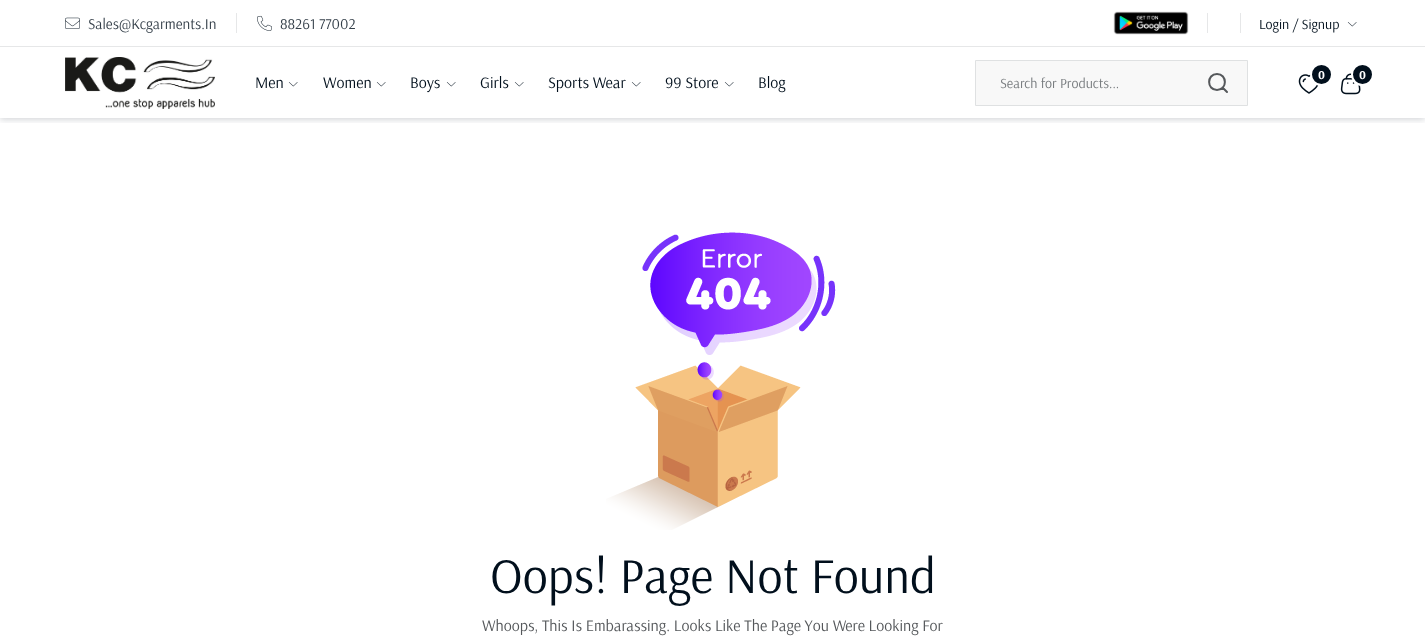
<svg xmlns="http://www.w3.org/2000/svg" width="1425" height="642">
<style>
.a{font:15px Arsenal;fill:#343f49}
.b{font:14px Arsenal;fill:#010f1c}
.c{font:16px Arsenal;fill:#010f1c}
.d{font:bold 12px Arsenal;fill:#fff}
.e{font:14px Arsenal;fill:#767a7d}
.f{font:50px Arsenal;fill:#010f1c}
.g{font:16px Arsenal;fill:#55585b}
</style>
<defs>
<clipPath id="clip1"><path d="M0 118h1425v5H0z"/></clipPath>
</defs>
<rect width="100%" height="100%" fill="#fff"/>
<g clip-path="url(#clip1)">
<path fill="#010f1c29" filter="blur(3px)" d="M0 2h1425v118H0z"/>
</g>
<path fill="#e6e7e8" d="M0 46h1425v1H0z"/>
<image href="1.png" x="65" y="17" width="15" height="12"/>
<path fill="#e6e7e8" d="M236 13h1v20H236z"/>
<image href="2.png" x="257" y="15" width="15" height="16"/>
<image href="3.png" x="1113" y="11" width="76" height="24"/>
<path fill="#e6e7e8" d="M1207 13h1v20H1207z"/>
<path fill="#e6e7e8" d="M1240 13h1v20H1240z"/>
<image href="4.png" x="1347" y="22" width="10" height="5"/>
<image href="5.png" x="65" y="57" width="150" height="52"/>
<image href="4.png" x="288" y="82" width="10" height="5"/>
<image href="4.png" x="376" y="82" width="10" height="5"/>
<image href="4.png" x="446" y="82" width="10" height="5"/>
<image href="4.png" x="514" y="82" width="10" height="5"/>
<image href="4.png" x="631" y="82" width="10" height="5"/>
<image href="4.png" x="724" y="82" width="10" height="5"/>
<image href="6.png" x="1298" y="74" width="21" height="20"/>
<circle fill="#010f1c" stroke="#fff" stroke-width="2" cx="1321.5" cy="74.5" r="10.5"/>
<image href="7.png" x="1340" y="73" width="21" height="22"/>
<circle fill="#010f1c" stroke="#fff" stroke-width="2" cx="1362.5" cy="74.5" r="10.5"/>
<path fill="#f8f8f8" stroke="#dfe1e2" d="M975.5 60.5h272v45H975.5z"/>
<path fill="none" stroke="#55585b" stroke-width="2" stroke-linecap="round" stroke-linejoin="round" d="M1217 90c10.5 0 10.5-16 0-16c-10.5 0-10.5 16 0 16zm10 2l-4.5-4.5"/>
<image href="8.png" x="606" y="232" width="230" height="298"/>
<text class="a" x="88" y="29">Sales@Kcgarments.In</text>
<text class="a" x="280" y="29">88261 77002</text>
<text class="b" x="1259" y="29">Login / Signup</text>
<text class="c" x="255" y="88">Men</text>
<text class="c" x="323" y="88">Women</text>
<text class="c" x="410" y="88">Boys</text>
<text class="c" x="480" y="88">Girls</text>
<text class="c" x="548" y="88">Sports Wear</text>
<text class="c" x="665" y="88">99 Store</text>
<text class="c" x="758" y="88">Blog</text>
<text class="d" x="1318" y="79">0</text>
<text class="d" x="1359" y="79">0</text>
<text class="e" x="1000" y="88">Search for Products...</text>
<text class="f" x="490" y="593">Oops! Page Not Found</text>
<text class="g" x="482" y="631">Whoops, This Is Embarassing. Looks Like The Page You Were Looking For</text>
</svg>
